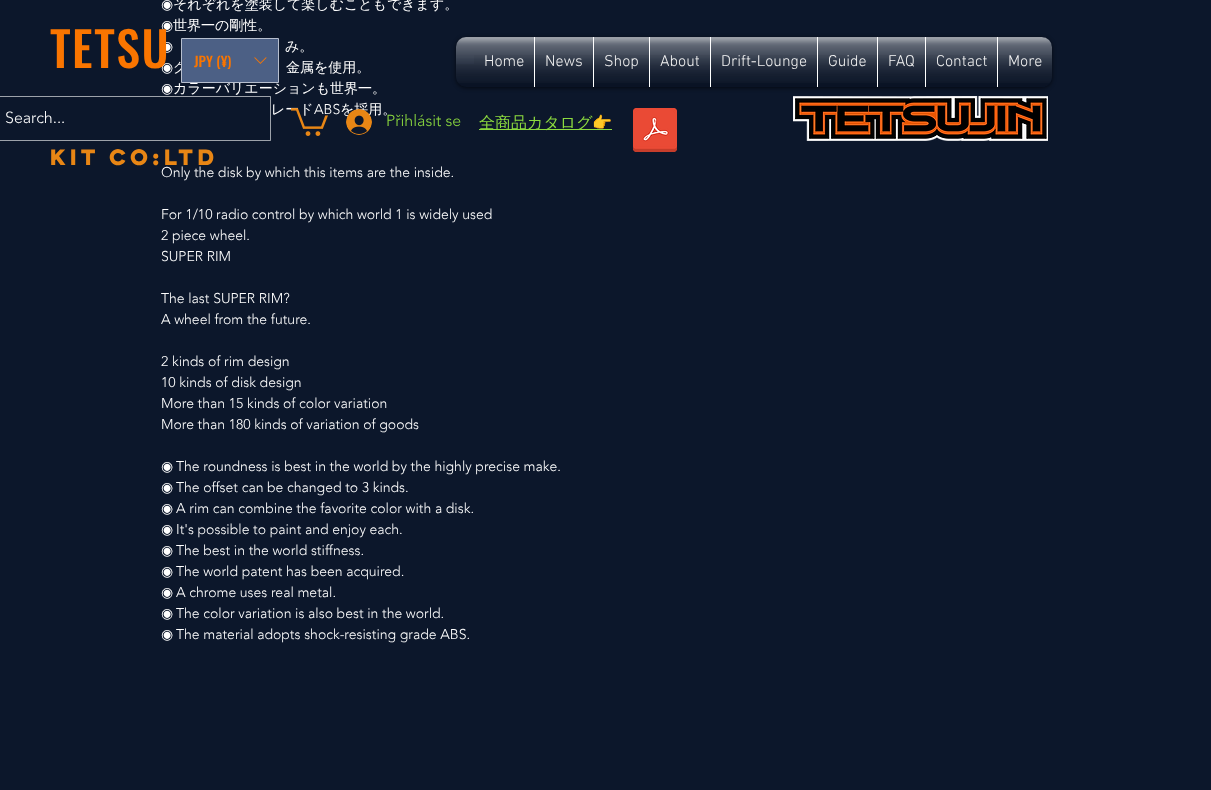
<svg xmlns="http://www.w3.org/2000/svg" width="1211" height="790">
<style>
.a{font:14px DejaVu Sans;fill:#fff}
.b{font:500 14px WenQuanYi Zen Hei;fill:#fff}
.c{font:300 14px 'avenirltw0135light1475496';fill:#fff}
.d{font:500 48px Oswald;letter-spacing:1.5px;fill:#fa7500}
.e{font:bold 20px 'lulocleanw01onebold';fill:#e88615}
.f{font:500 14px Oswald;fill:#fa7500}
.g{font:300 16px 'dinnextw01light';fill:#fff}
.h{font:300 16px 'avenirltw0135light1475496';fill:#fff}
.i{font:300 16px 'avenirltw0135light1475496';fill:#8cda3f}
.j{font:500 16px WenQuanYi Zen Hei;fill:#8cda3f}
.k{font:16px Noto Color Emoji;fill:#8cda3f}
</style>
<defs>
<clipPath id="clip1"><path d="M194 52h52v17H194z"/></clipPath>
</defs>
<rect width="100%" height="100%" fill="#0c172b"/>
<rect fill="#00000099" filter="blur(2px)" x="456" y="38" width="596" height="50" rx="10"/>
<rect fill="#0c172b" x="456" y="37" width="596" height="50" rx="10"/>
<image href="2.png" x="456" y="37" width="596" height="46"/>
<image href="3.png" x="456" y="64" width="596" height="23"/>
<path fill="#0c172b" d="M474 37h60v50H474z"/>
<path fill="#0c172b" d="M535 37h58v50H535z"/>
<path fill="#fff" d="M534 37h1v50H534z"/>
<path fill="#0c172b" d="M594 37h55v50H594z"/>
<path fill="#fff" d="M593 37h1v50H593z"/>
<path fill="#0c172b" d="M650 37h60v50H650z"/>
<path fill="#fff" d="M649 37h1v50H649z"/>
<path fill="#0c172b" d="M711 37h106v50H711z"/>
<path fill="#fff" d="M710 37h1v50H710z"/>
<path fill="#0c172b" d="M818 37h59v50H818z"/>
<path fill="#fff" d="M817 37h1v50H817z"/>
<path fill="#0c172b" d="M878 37h47v50H878z"/>
<path fill="#fff" d="M877 37h1v50H877z"/>
<path fill="#0c172b" d="M926 37h71v50H926z"/>
<path fill="#fff" d="M925 37h1v50H925z"/>
<path fill="#0c172b" d="M997 37h45c5.5 0 10 4.5 10 10v30c0 5.5-4.5 10-10 10h-45z"/>
<path fill="#fff" d="M997 37h1v50H997z"/>
<path fill="none" stroke="#ffffff99" d="M-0.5 96.5h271v44H-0.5z"/>
<path fill="#8cda3f" d="M479 129h133v1H479z"/>
<image href="24.png" x="633" y="108" width="44" height="44"/>
<image href="25.png" x="793" y="96" width="255" height="45"/>
<text class="a" x="161" y="9">◉</text>
<text class="b" x="173" y="9">それぞれを塗装して楽しむこともできます。</text>
<text class="a" x="161" y="30">◉</text>
<text class="b" x="173" y="30">世界一の剛性。</text>
<text class="a" x="161" y="51">◉</text>
<text class="b" x="285" y="51">み。</text>
<text class="a" x="161" y="72">◉</text>
<text class="b" x="173" y="72">ク</text>
<text class="b" x="286" y="72">金属を使用。</text>
<text class="a" x="161" y="93">◉</text>
<text class="b" x="173" y="93">カラーバリエーションも世界一。</text>
<text class="b" x="271" y="114">レード</text>
<text class="c" x="314" y="114">ABS</text>
<text class="b" x="340" y="114">を採用。</text>
<text class="c" x="161" y="177">Only the disk by which this items are the inside.</text>
<text class="c" x="161" y="219">For 1/10 radio control by which world 1 is widely used</text>
<text class="c" x="161" y="240">2 piece wheel.</text>
<text class="c" x="161" y="261">SUPER RIM</text>
<text class="c" x="161" y="303">The last SUPER RIM?</text>
<text class="c" x="161" y="324">A wheel from the future.</text>
<text class="c" x="161" y="366">2 kinds of rim design</text>
<text class="c" x="161" y="387">10 kinds of disk design</text>
<text class="c" x="161" y="408">More than 15 kinds of color variation</text>
<text class="c" x="161" y="429">More than 180 kinds of variation of goods</text>
<text class="a" x="161" y="471">◉</text>
<text class="c" x="176" y="471">The roundness is best in the world by the highly precise make.</text>
<text class="a" x="161" y="492">◉</text>
<text class="c" x="176" y="492">The offset can be changed to 3 kinds.</text>
<text class="a" x="161" y="513">◉</text>
<text class="c" x="176" y="513">A rim can combine the favorite color with a disk.</text>
<text class="a" x="161" y="534">◉</text>
<text class="c" x="176" y="534">It's possible to paint and enjoy each.</text>
<text class="a" x="161" y="555">◉</text>
<text class="c" x="176" y="555">The best in the world stiffness.</text>
<text class="a" x="161" y="576">◉</text>
<text class="c" x="176" y="576">The world patent has been acquired.</text>
<text class="a" x="161" y="597">◉</text>
<text class="c" x="176" y="597">A chrome uses real metal.</text>
<text class="a" x="161" y="618">◉</text>
<text class="c" x="176" y="618">The color variation is also best in the world.</text>
<text class="a" x="161" y="639">◉</text>
<text class="c" x="176" y="639">The material adopts shock-resisting grade ABS.</text>
<text class="d" x="50" y="68">TETSU</text>
<text class="e" x="50" y="165">KIT co:LTD</text>
<path fill="#4c6085" stroke="#b7bfce" d="M181.5 38.5h97v44H181.5z"/>
<g clip-path="url(#clip1)">
<text class="f" x="194" y="67">JPY (¥)</text>
</g>
<image href="1.png" x="254" y="57" width="13" height="7"/>
<text class="g" x="484" y="66">Home</text>
<image href="4.png" x="474" y="37" width="60" height="46"/>
<image href="5.png" x="474" y="55" width="60" height="32"/>
<text class="g" x="545" y="66">News</text>
<image href="6.png" x="535" y="37" width="58" height="46"/>
<image href="7.png" x="535" y="55" width="58" height="32"/>
<text class="g" x="604" y="66">Shop</text>
<image href="8.png" x="594" y="37" width="55" height="46"/>
<image href="9.png" x="594" y="55" width="55" height="32"/>
<text class="g" x="660" y="66">About</text>
<image href="10.png" x="650" y="37" width="60" height="46"/>
<image href="11.png" x="650" y="55" width="60" height="32"/>
<text class="g" x="721" y="66">Drift-Lounge</text>
<image href="12.png" x="711" y="37" width="106" height="46"/>
<image href="13.png" x="711" y="55" width="106" height="32"/>
<text class="g" x="828" y="66">Guide</text>
<image href="14.png" x="818" y="37" width="59" height="46"/>
<image href="15.png" x="818" y="55" width="59" height="32"/>
<text class="g" x="888" y="66">FAQ</text>
<image href="16.png" x="878" y="37" width="47" height="46"/>
<image href="17.png" x="878" y="55" width="47" height="32"/>
<text class="g" x="936" y="66">Contact</text>
<image href="18.png" x="926" y="37" width="71" height="46"/>
<image href="19.png" x="926" y="55" width="71" height="32"/>
<text class="g" x="1008" y="66">More</text>
<image href="20.png" x="998" y="37" width="54" height="46"/>
<image href="21.png" x="998" y="55" width="54" height="32"/>
<text class="h" x="5" y="123">Search...</text>
<image href="22.png" x="291" y="108" width="37" height="28"/>
<image href="23.png" x="346" y="109" width="26" height="26"/>
<text class="i" x="386" y="126">Přihlásit se</text>
<text class="j" x="479" y="128">全商品カタログ</text>
<text class="k" x="592" y="128">👉</text>
</svg>
